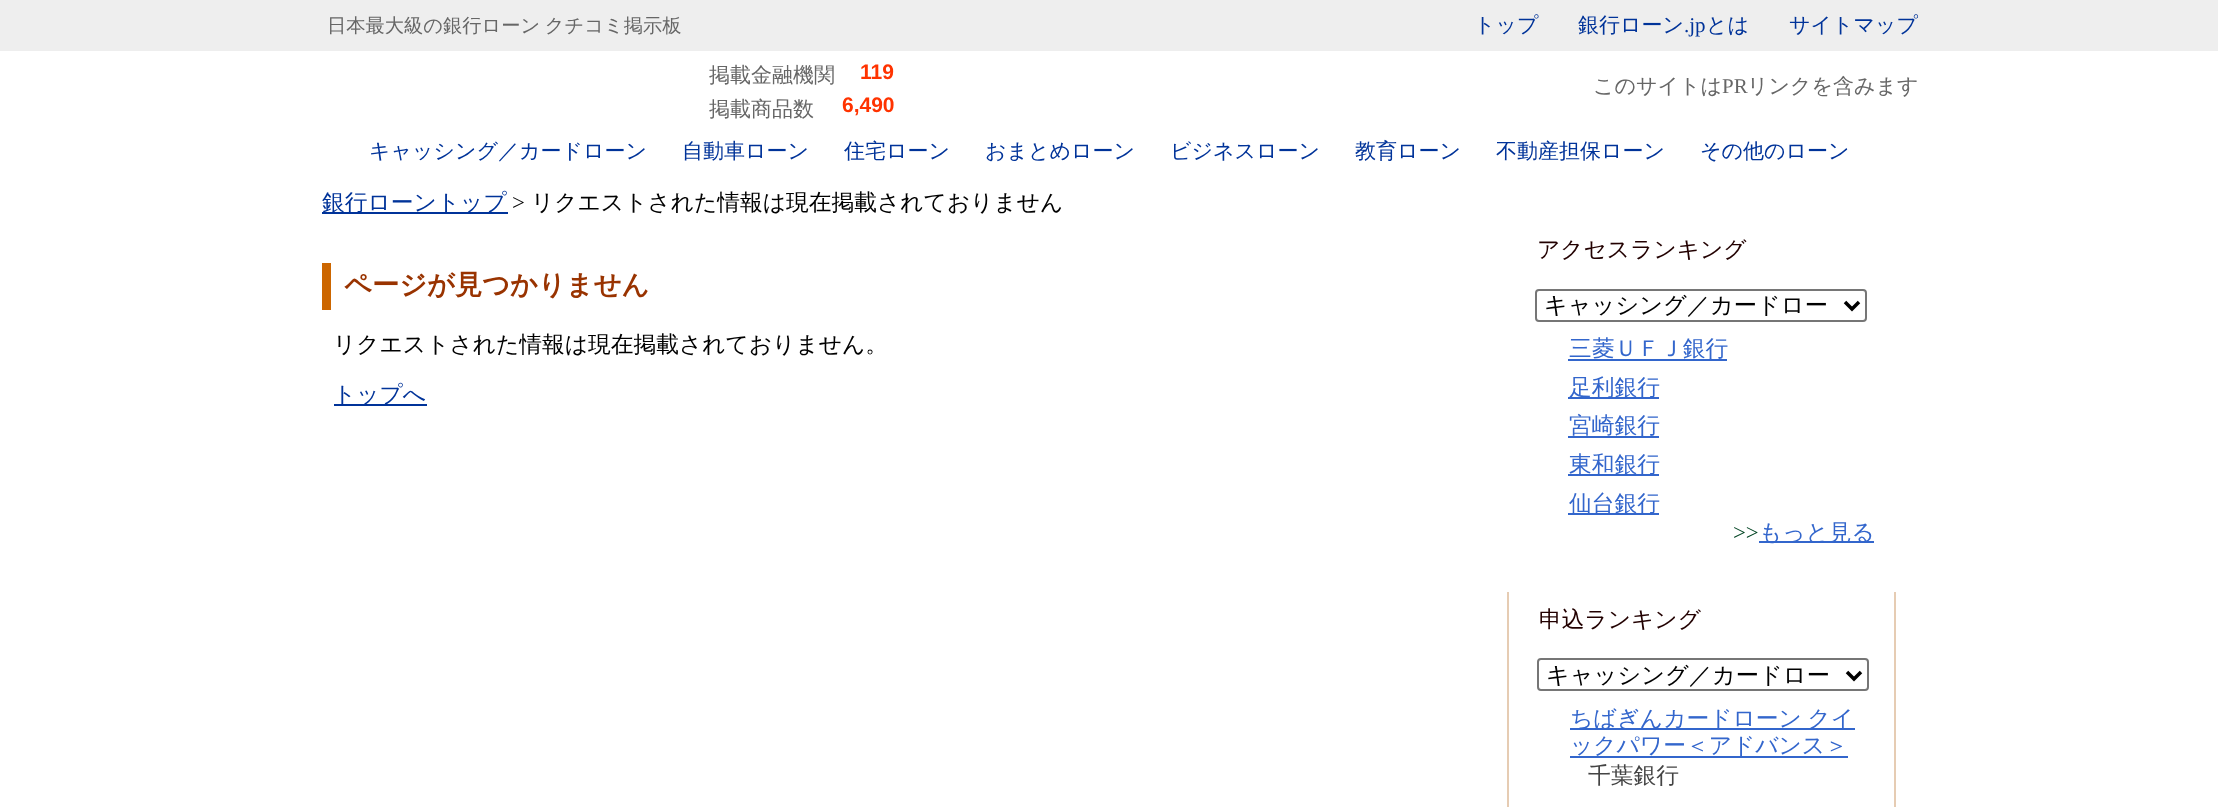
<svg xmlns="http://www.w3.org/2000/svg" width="2218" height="807">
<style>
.a{font:500 19.25px WenQuanYi Zen Hei;fill:#666}
.b{font:500 21px WenQuanYi Zen Hei;fill:#039}
.c{font:21px Liberation Serif;fill:#039}
.d{font:500 21px WenQuanYi Zen Hei;fill:#666}
.e{font:bold 21px Liberation Sans;fill:#f30}
.f{font:21px Liberation Serif;fill:#666}
.g{font:500 22.75px WenQuanYi Zen Hei;fill:#039}
.h{font:22.75px Liberation Serif;fill:#000}
.i{font:500 22.75px WenQuanYi Zen Hei;fill:#000}
.j{font:bold 27.25px WenQuanYi Zen Hei;fill:#930}
.k{font:500 22.75px WenQuanYi Zen Hei;fill:#200}
.l{font:500 23.25px WenQuanYi Zen Hei;fill:#000}
.m{font:500 22.75px WenQuanYi Zen Hei;fill:#36c}
.n{font:22.75px Liberation Serif;fill:#042}
.o{font:500 22.75px WenQuanYi Zen Hei;fill:#444}
</style>
<rect width="100%" height="100%" fill="#fff"/>
<path fill="#eee" d="M0 0h2218v51H0z"/>
<path fill="#039" d="M322 212h186v2H322z"/>
<path fill="#c60" d="M322 263h9v47H322z"/>
<path fill="#039" d="M334 404h93v2H334z"/>
<rect fill="none" stroke="#767676" stroke-width="2" x="1536" y="290" width="330" height="31" rx="3"/>
<path fill="none" stroke="#000" stroke-width="3.5" d="M1845 302l7 7l7-7"/>
<path fill="#36c" d="M1568 359h159v2H1568z"/>
<path fill="#36c" d="M1568 397h91v2H1568z"/>
<path fill="#36c" d="M1568 436h91v2H1568z"/>
<path fill="#36c" d="M1568 474h91v2H1568z"/>
<path fill="#36c" d="M1568 513h91v2H1568z"/>
<path fill="#36c" d="M1759 541h115v2H1759z"/>
<path fill="#e6ccb3" d="M1894 592h2v215H1894z"/>
<path fill="#e6ccb3" d="M1507 592h2v215H1507z"/>
<rect fill="none" stroke="#767676" stroke-width="2" x="1538" y="659" width="330" height="31" rx="3"/>
<path fill="none" stroke="#000" stroke-width="3.5" d="M1847 672l7 7l7-7"/>
<path fill="#36c" d="M1570 728h285v2H1570z"/>
<path fill="#36c" d="M1570 756h278v2H1570z"/>
<text class="a" x="327" y="32" word-spacing="-1">日本最大級の銀行ローン クチコミ掲示板</text>
<text class="b" x="1474" y="32">トップ</text>
<text class="b" x="1578" y="32">銀行ローン</text>
<text class="c" x="1684" y="32">.jp</text>
<text class="b" x="1706" y="32">とは</text>
<text class="b" x="1789" y="32">サイトマップ</text>
<text class="d" x="709" y="82">掲載金融機関</text>
<text class="e" x="860" y="79">119</text>
<text class="d" x="709" y="116">掲載商品数</text>
<text class="e" x="842" y="112">6,490</text>
<text class="d" x="1593" y="93">このサイトは</text>
<text class="f" x="1722" y="93">PR</text>
<text class="d" x="1747" y="93">リンクを含みます</text>
<text class="b" x="369" y="158">キャッシング／カードローン</text>
<text class="b" x="682" y="158">自動車ローン</text>
<text class="b" x="844" y="158">住宅ローン</text>
<text class="b" x="985" y="158">おまとめローン</text>
<text class="b" x="1170" y="158">ビジネスローン</text>
<text class="b" x="1355" y="158">教育ローン</text>
<text class="b" x="1496" y="158">不動産担保ローン</text>
<text class="b" x="1700" y="158">その他のローン</text>
<text class="g" x="322" y="210">銀行ローントップ</text>
<text class="h" x="512" y="210">&gt;</text>
<text class="i" x="531" y="210">リクエストされた情報は現在掲載されておりません</text>
<text class="j" x="344" y="294">ページが見つかりません</text>
<text class="i" x="333" y="352">リクエストされた情報は現在掲載されておりません。</text>
<text class="g" x="333" y="402">トップへ</text>
<text class="k" x="1537" y="257">アクセスランキング</text>
<text class="l" x="1544" y="313">キャッシング／カードロー</text>
<text class="m" x="1569" y="356">三菱ＵＦＪ銀行</text>
<text class="m" x="1569" y="395">足利銀行</text>
<text class="m" x="1569" y="433">宮崎銀行</text>
<text class="m" x="1569" y="472">東和銀行</text>
<text class="m" x="1569" y="511">仙台銀行</text>
<text class="n" x="1733" y="540">&gt;&gt;</text>
<text class="m" x="1759" y="540">もっと見る</text>
<text class="k" x="1539" y="627">申込ランキング</text>
<text class="l" x="1546" y="683">キャッシング／カードロー</text>
<text class="m" x="1570" y="726" word-spacing="-1">ちばぎんカードローン クイ</text>
<text class="m" x="1570" y="753">ックパワー＜アドバンス＞</text>
<text class="o" x="1588" y="783">千葉銀行</text>
</svg>
